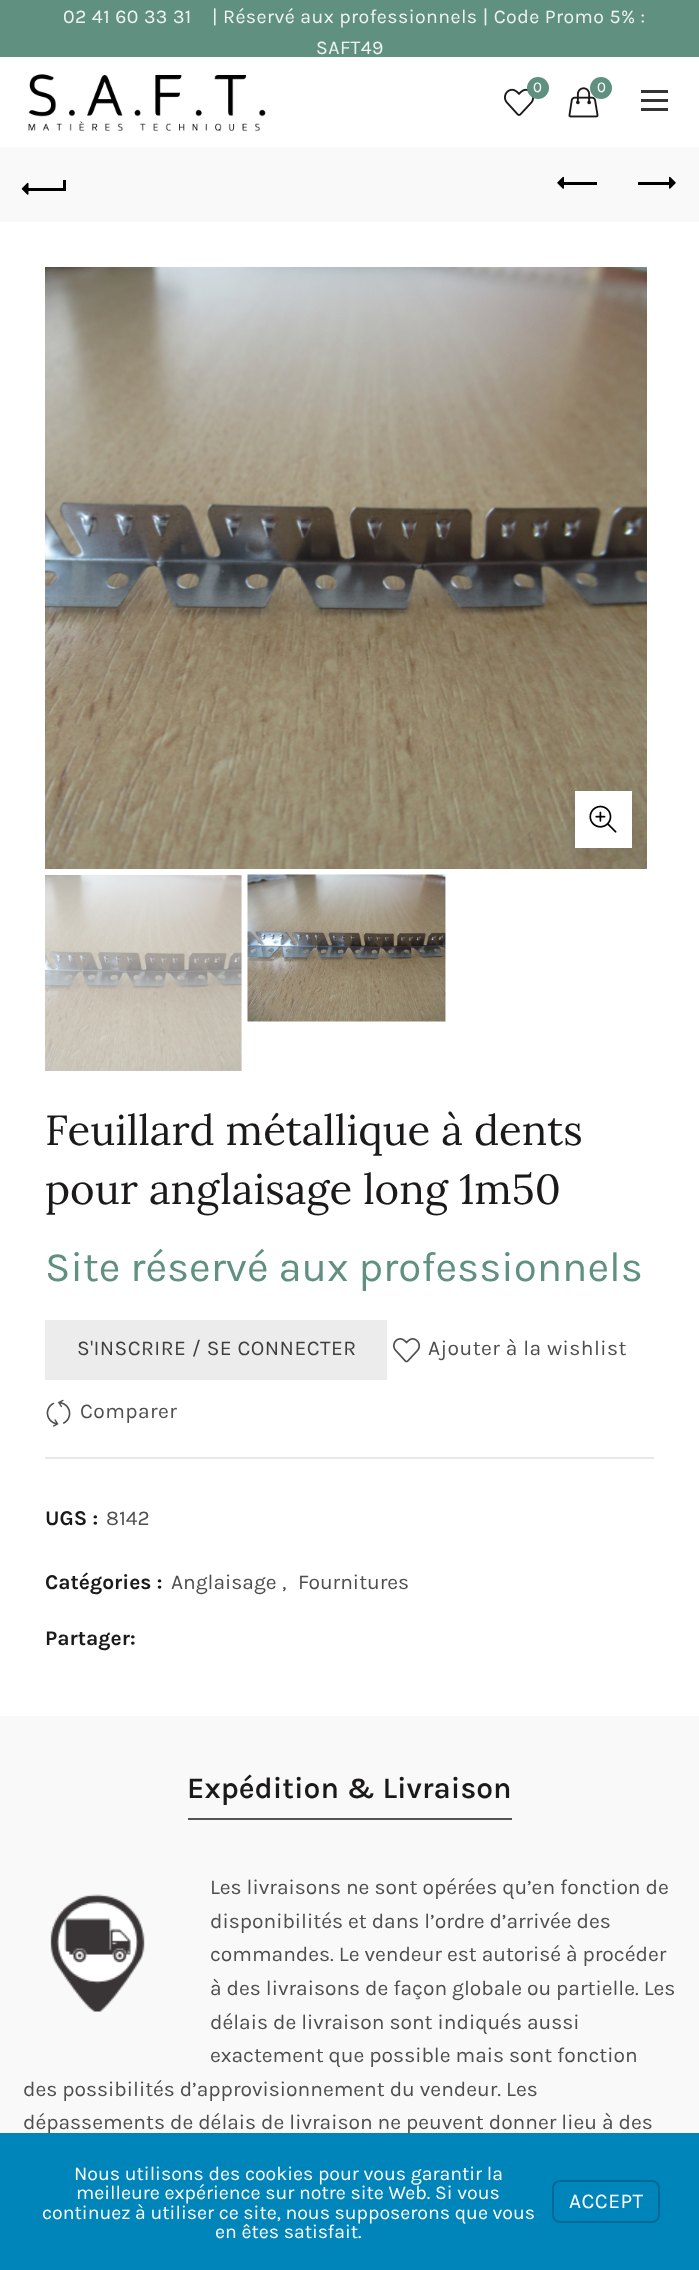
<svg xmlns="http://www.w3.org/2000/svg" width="699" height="2270">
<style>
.a{font:19.5px Karla;letter-spacing:0.45px;fill:#eff4f2}
.b{font:15px Karla;fill:#fff}
.c{font:42px Lora;fill:#1b1919}
.d{font:42px Karla;fill:#609080}
.e{font:21px Karla;letter-spacing:0.45px;fill:#3e3e3e}
.f{font:21px Karla;letter-spacing:0.45px;fill:#4e4e4e}
.g{font:bold 21px Karla;fill:#1b1919}
.h{font:21px Karla;fill:#4e4e4e}
.i{font:600 30px Karla;fill:#1b1919}
.j{font:19.5px Karla;fill:#fff}
.k{font:21px Karla;letter-spacing:0.45px;fill:#fff}
</style>
<rect width="100%" height="100%" fill="#fff"/>
<path fill="#609080" d="M0 0h699v57H0z"/>
<image href="1.png" x="28" y="74" width="238" height="58"/>
<image href="2.png" x="504" y="88" width="30" height="28"/>
<circle fill="#609080" cx="538" cy="88" r="11"/>
<image href="3.png" x="568" y="87" width="31" height="31"/>
<circle fill="#609080" cx="601" cy="88" r="11"/>
<path fill="#333" d="M641 99h27v3H641z"/>
<path fill="#333" d="M641 90h27v3H641z"/>
<path fill="#333" d="M641 108h27v3H641z"/>
<path fill="#f9f9f9" d="M0 147h699v75H0z"/>
<path fill="#000" d="M27 188h38v3H27z"/>
<image href="4.png" x="21" y="182" width="8" height="13"/>
<path fill="#000" d="M63 180h3v11H63z"/>
<path fill="#000" d="M563 182h34v3H563z"/>
<image href="5.png" x="557" y="176" width="7" height="13"/>
<path fill="#000" d="M638 182h34v3H638z"/>
<image href="6.png" x="669" y="176" width="7" height="13"/>
<image href="7.png" x="45" y="267" width="602" height="602"/>
<path fill="#0000001a" filter="blur(7px)" d="M575 791h57v57H575z"/>
<path fill="#fff" d="M575 791h57v57H575z"/>
<image href="8.png" x="589" y="805" width="28" height="28"/>
<image href="9.png" x="45" y="875" width="197" height="196"/>
<image href="10.png" x="247" y="874" width="199" height="148"/>
<path fill="#ececec" d="M45 1320h342v60H45z"/>
<image href="11.png" x="393" y="1338" width="27" height="25"/>
<image href="12.png" x="46" y="1399" width="25" height="28"/>
<path fill="#e8e8e8" d="M45 1457h609v2H45z"/>
<path fill="#f9f9f9" d="M0 1716h699v417H0z"/>
<path fill="#545454" d="M188 1818h324v2H188z"/>
<image href="13.png" x="50" y="1894" width="95" height="118"/>
<text class="a" x="63" y="23">02 41 60 33 31</text>
<text class="a" x="212" y="23">| Réservé aux professionnels | Code Promo 5% :</text>
<text class="a" x="316" y="54">SAFT49</text>
<text class="b" x="533" y="92">0</text>
<text class="b" x="597" y="92">0</text>
<text class="c" x="45" y="1145">Feuillard métallique à dents</text>
<text class="c" x="45" y="1204">pour anglaisage long 1m50</text>
<text class="d" x="45" y="1281">Site réservé aux professionnels</text>
<text class="e" x="77" y="1355">S'INSCRIRE / SE CONNECTER</text>
<text class="f" x="428" y="1355">Ajouter à la wishlist</text>
<text class="f" x="80" y="1418">Comparer</text>
<text class="g" x="45" y="1525">UGS :</text>
<text class="h" x="106" y="1525">8142</text>
<text class="g" x="45" y="1589">Catégories :</text>
<text class="h" x="171" y="1589">Anglaisage</text>
<text class="h" x="282" y="1589">,</text>
<text class="h" x="298" y="1589">Fournitures</text>
<text class="g" x="45" y="1645">Partager:</text>
<text class="i" x="187" y="1798">Expédition &amp; Livraison</text>
<text class="h" x="210" y="1894">Les livraisons ne sont opérées qu’en fonction de</text>
<text class="h" x="210" y="1928">disponibilités et dans l’ordre d’arrivée des</text>
<text class="h" x="210" y="1961">commandes. Le vendeur est autorisé à procéder</text>
<text class="h" x="210" y="1995">à des livraisons de façon globale ou partielle. Les</text>
<text class="h" x="210" y="2029">délais de livraison sont indiqués aussi</text>
<text class="h" x="210" y="2062">exactement que possible mais sont fonction</text>
<text class="h" x="23" y="2096">des possibilités d’approvisionnement du vendeur. Les</text>
<text class="h" x="23" y="2129">dépassements de délais de livraison ne peuvent donner lieu à des</text>
<path fill="#0085ba" d="M0 2133h699v137H0z"/>
<text class="j" x="74" y="2180">Nous utilisons des cookies pour vous garantir la</text>
<text class="j" x="76" y="2199">meilleure expérience sur notre site Web. Si vous</text>
<text class="j" x="42" y="2219">continuez à utiliser ce site, nous supposerons que vous</text>
<text class="j" x="215" y="2238">en êtes satisfait.</text>
<rect fill="none" stroke="#006799" stroke-width="2" x="553" y="2181" width="106" height="41" rx="7"/>
<text class="k" x="569" y="2208">ACCEPT</text>
</svg>
